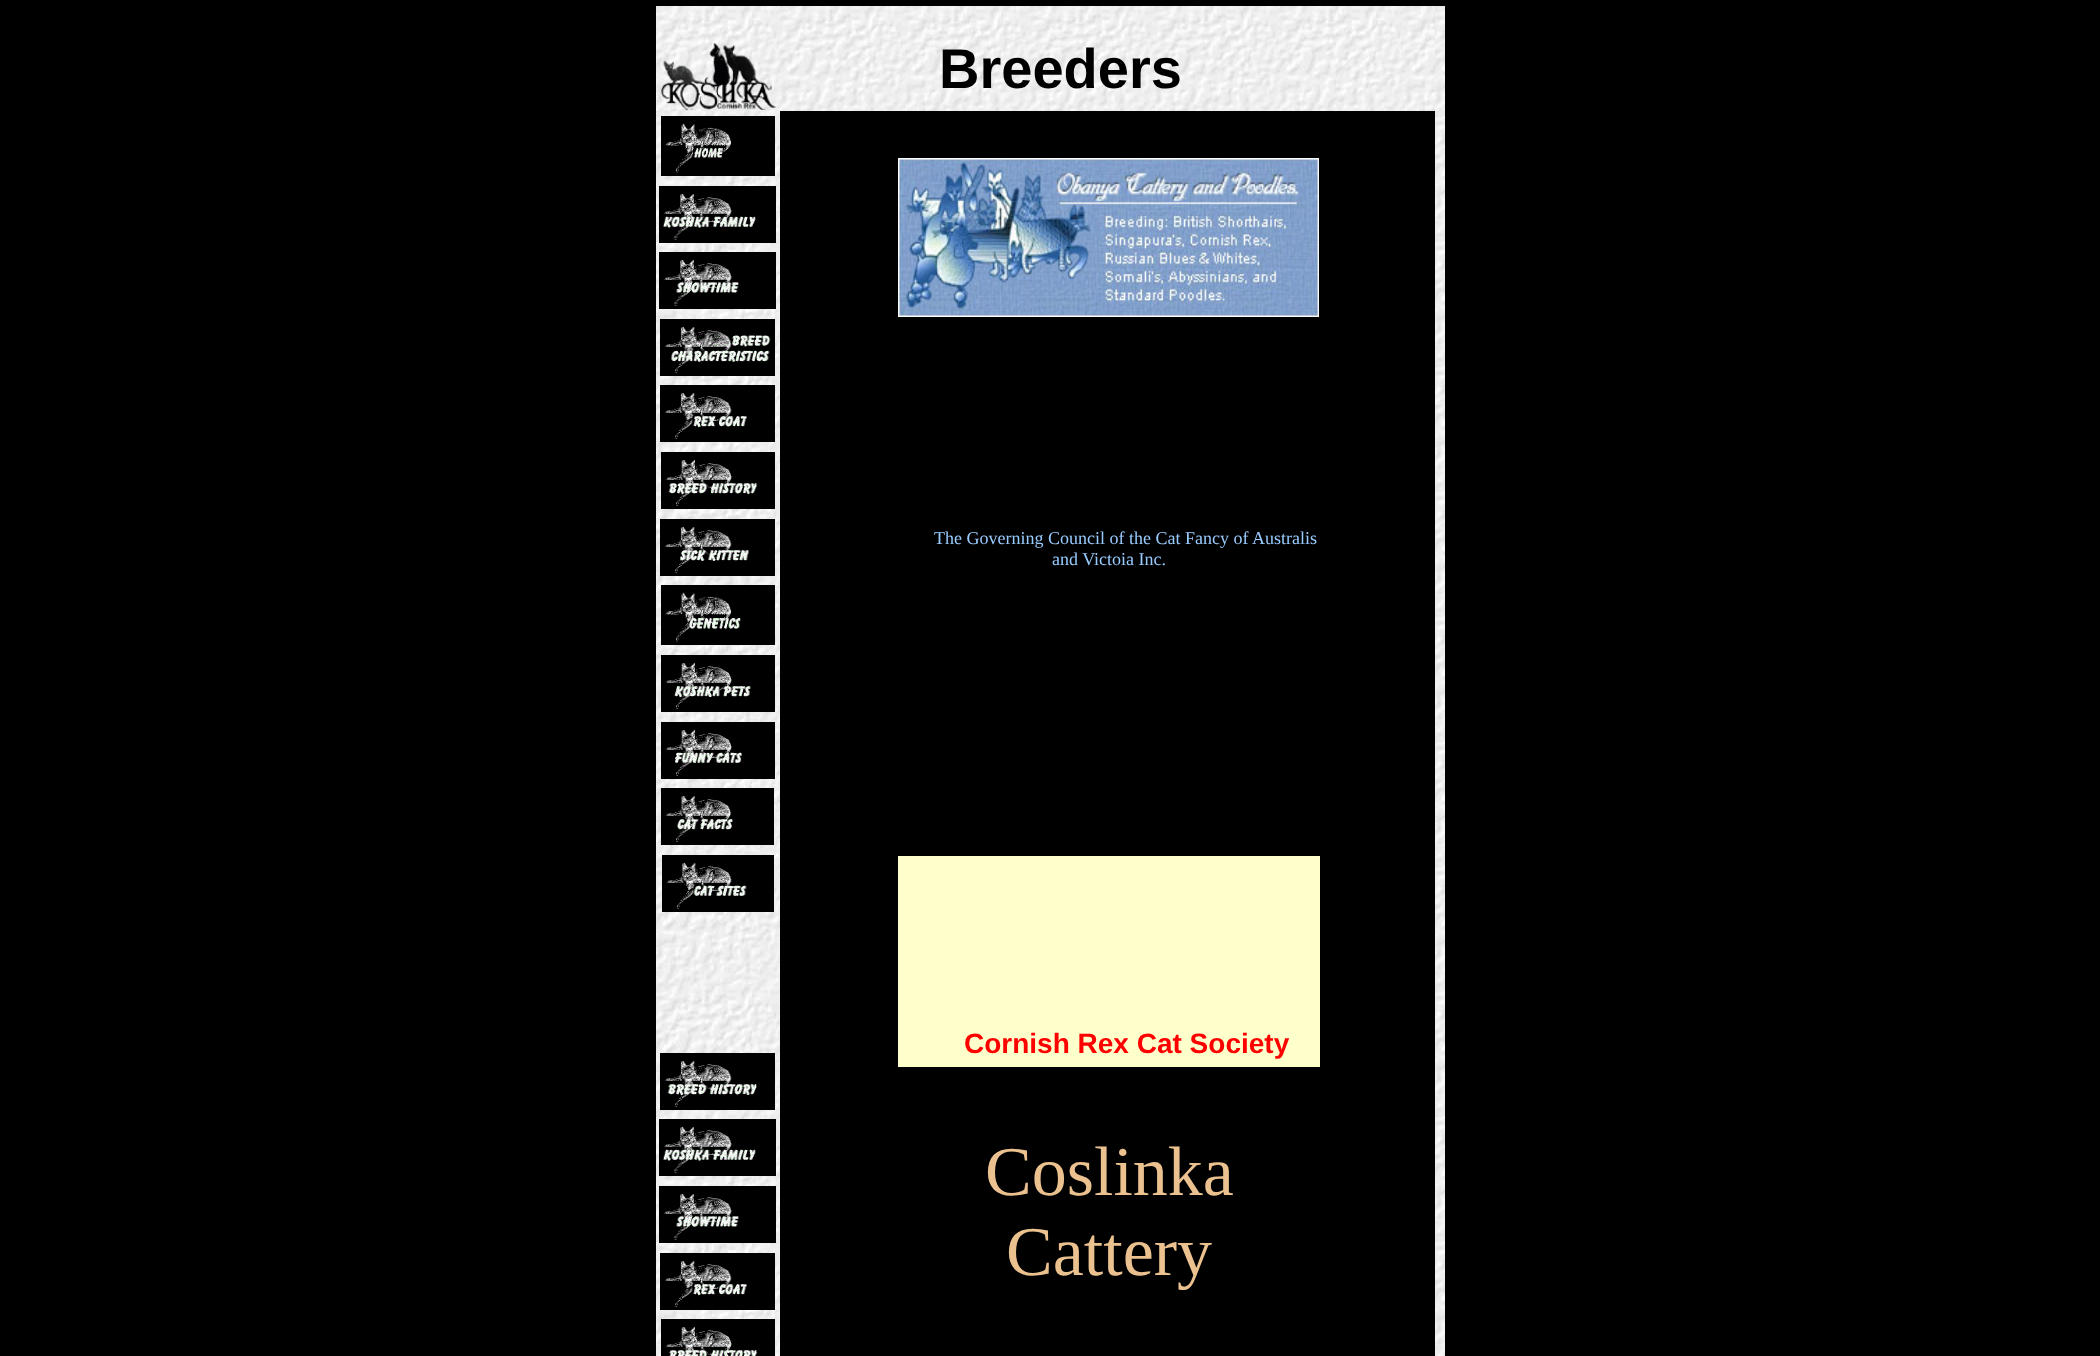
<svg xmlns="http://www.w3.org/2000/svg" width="2100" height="1356">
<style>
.a{font:bold 56px Liberation Sans;fill:#000}
.b{font:18px Liberation Serif;fill:#9cf}
.c{font:bold 28px Liberation Sans;fill:#f00}
.d{font:70px Liberation Serif;fill:#ebc28f}
</style>
<rect width="100%" height="100%" fill="#000"/>
<image href="1.png" x="656" y="6" width="124" height="105"/>
<image href="2.png" x="661" y="43" width="115" height="67"/>
<image href="3.png" x="780" y="6" width="655" height="105"/>
<image href="4.png" x="1435" y="6" width="10" height="105"/>
<image href="5.png" x="656" y="111" width="124" height="1245"/>
<image href="6.png" x="661" y="116" width="114" height="60"/>
<image href="7.png" x="659" y="186" width="117" height="57"/>
<image href="8.png" x="659" y="252" width="117" height="57"/>
<image href="9.png" x="660" y="319" width="115" height="57"/>
<image href="10.png" x="660" y="385" width="115" height="57"/>
<image href="11.png" x="661" y="452" width="114" height="57"/>
<image href="12.png" x="660" y="519" width="115" height="57"/>
<image href="13.png" x="661" y="585" width="114" height="60"/>
<image href="14.png" x="661" y="655" width="114" height="57"/>
<image href="15.png" x="661" y="722" width="114" height="57"/>
<image href="16.png" x="661" y="788" width="113" height="57"/>
<image href="17.png" x="662" y="855" width="112" height="57"/>
<image href="18.png" x="660" y="1053" width="115" height="57"/>
<image href="7.png" x="659" y="1119" width="117" height="57"/>
<image href="8.png" x="659" y="1186" width="117" height="57"/>
<image href="10.png" x="660" y="1253" width="115" height="57"/>
<image href="19.png" x="661" y="1319" width="114" height="37"/>
<image href="20.png" x="898" y="158" width="421" height="159"/>
<path fill="#ffc" d="M898 856h422v211H898z"/>
<image href="21.png" x="1435" y="111" width="10" height="1245"/>
<text class="a" x="939" y="88">Breeders</text>
<text class="b" x="934" y="544">The Governing Council of the Cat Fancy of Australis</text>
<text class="b" x="1052" y="565">and Victoia Inc.</text>
<text class="c" x="964" y="1053">Cornish Rex Cat Society</text>
<text class="d" x="985" y="1195">Coslinka</text>
<text class="d" x="1006" y="1275">Cattery</text>
</svg>
